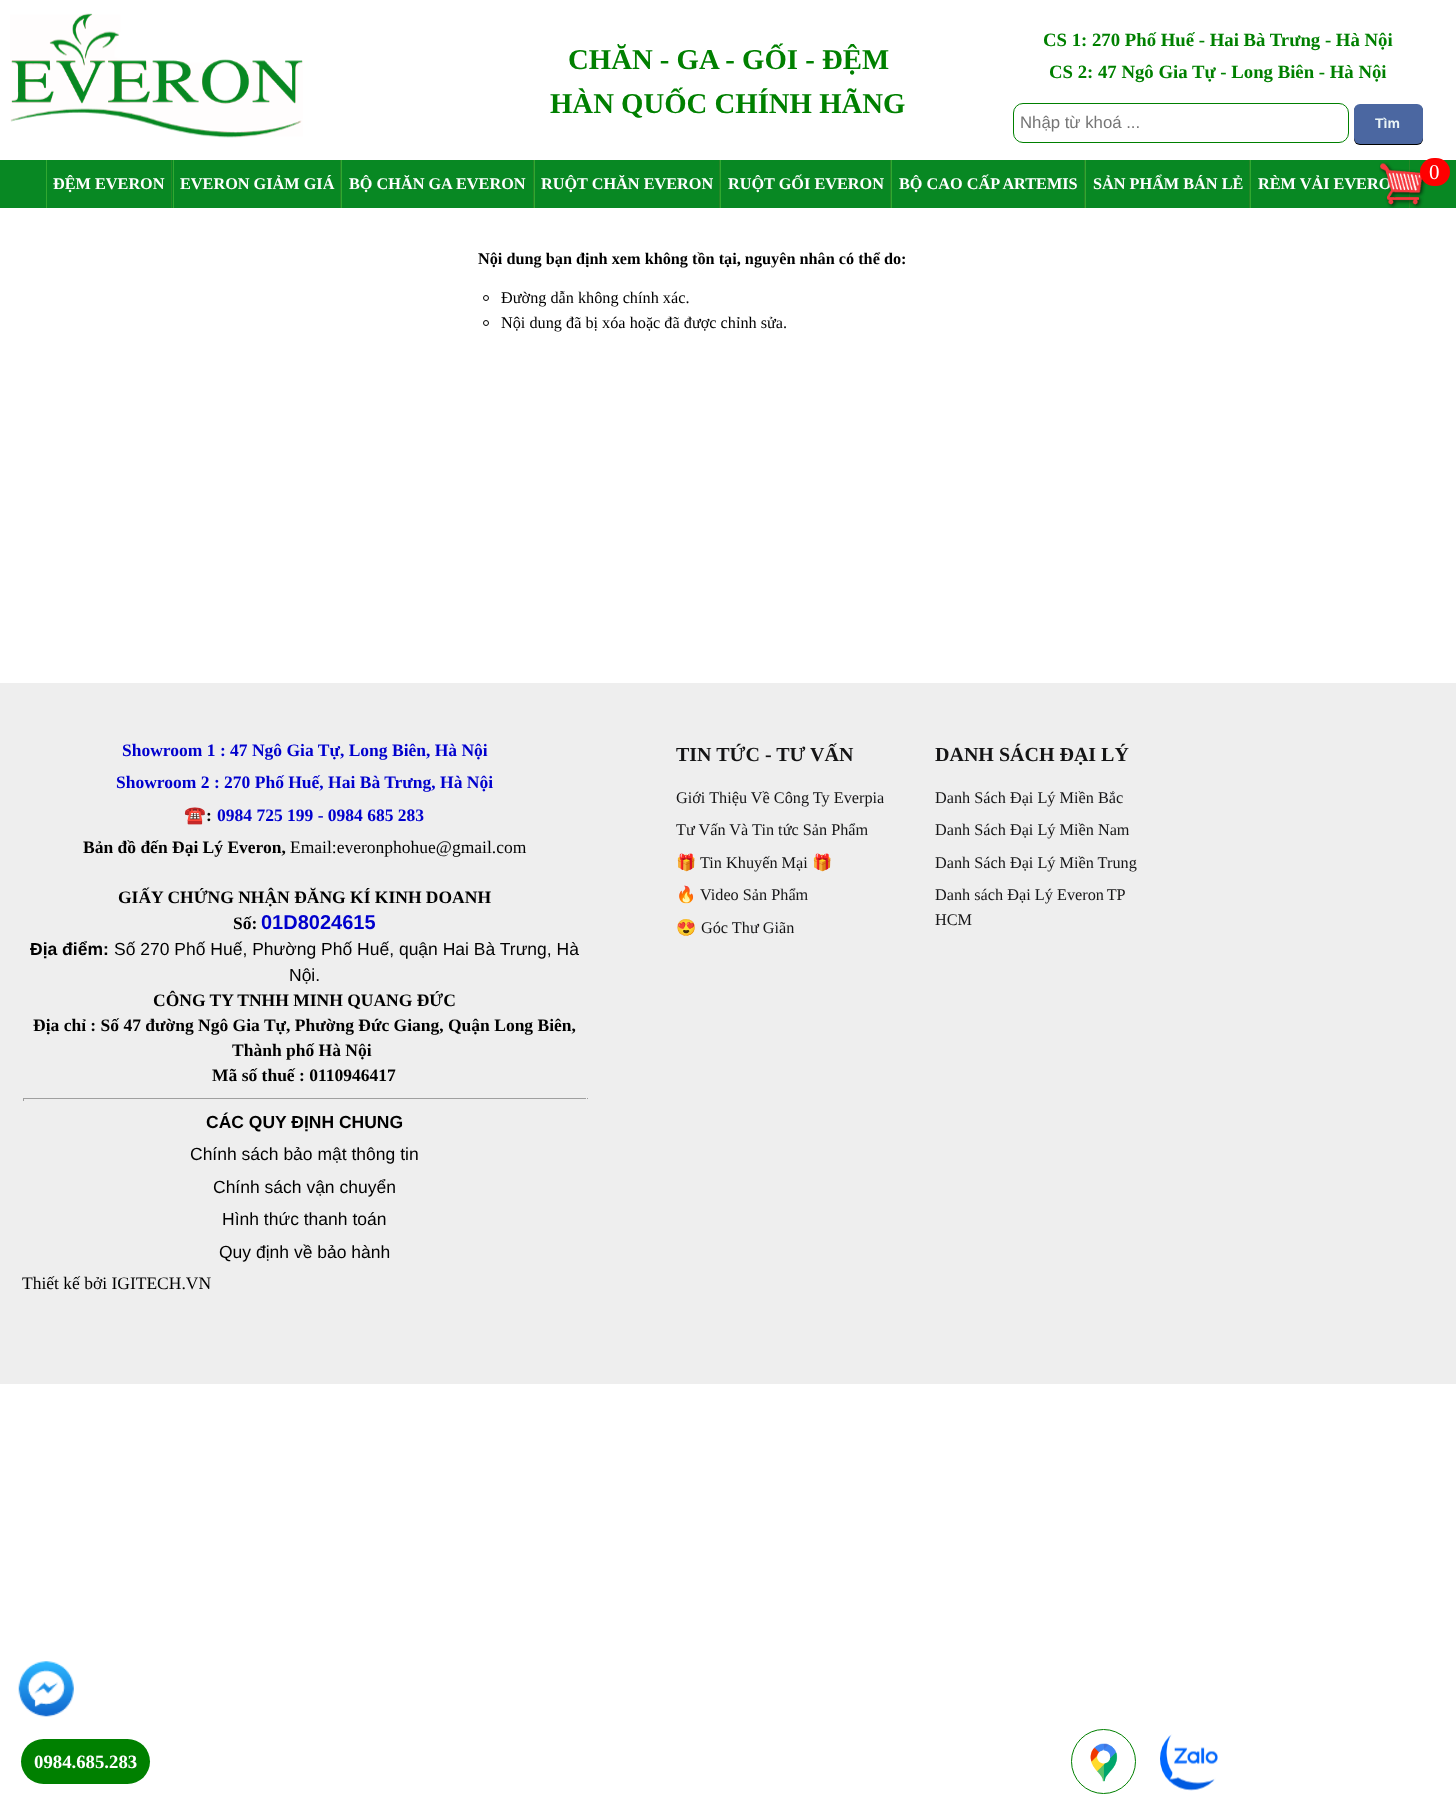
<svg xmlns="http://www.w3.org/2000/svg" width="1456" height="1796">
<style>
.a{font:bold 28.75px Liberation Serif;fill:#008000}
.b{font:bold 18.75px Liberation Serif;fill:#008000}
.c{font:16.75px Liberation Sans;fill:#757575}
.d{font:bold 14px Liberation Sans;fill:#eaf5f7}
.e{font:bold 16.25px Liberation Serif;fill:#fff}
.f{font:21px Liberation Serif;fill:#fff}
.g{font:bold 16.25px Liberation Serif;fill:#000}
.h{font:16.25px Liberation Serif;fill:#000}
.i{font:bold 17.5px Liberation Serif;fill:#0000cd}
.j{font:17.5px Noto Color Emoji;fill:#000}
.k{font:bold 17.5px Liberation Serif;fill:#000}
.l{font:17.5px Liberation Serif;fill:#000}
.m{font:bold 20px Liberation Sans;fill:#0000cd}
.n{font:bold 17.5px Liberation Sans;fill:#000}
.o{font:17.5px Liberation Sans;fill:#000}
.p{font:bold 20px Liberation Serif;fill:#141415}
.q{font:16.25px Liberation Serif;fill:#141415}
.r{font:16.25px Noto Color Emoji;fill:#141415}
.s{font:bold 18.75px Liberation Serif;fill:#fff}
</style>
<rect width="100%" height="100%" fill="#fff"/>
<image href="1.png" x="10" y="13" width="293" height="125"/>
<rect fill="none" stroke="#008000" x="1013.5" y="103.5" width="335" height="39" rx="9.5"/>
<rect fill="#000" filter="blur(0.5px)" x="1354" y="105" width="69" height="40" rx="6"/>
<rect fill="#4b67a1" x="1354" y="104" width="69" height="40" rx="6"/>
<path fill="#088823" d="M0 160h1456v48H0z"/>
<path fill="#268727" d="M171 160h1v48H171z"/>
<path fill="#31a830" d="M46 160h1v48H46z"/>
<path fill="#268727" d="M340 160h1v48H340z"/>
<path fill="#31a830" d="M173 160h1v48H173z"/>
<path fill="#268727" d="M533 160h1v48H533z"/>
<path fill="#31a830" d="M341 160h1v48H341z"/>
<path fill="#268727" d="M719 160h1v48H719z"/>
<path fill="#31a830" d="M534 160h1v48H534z"/>
<path fill="#268727" d="M890 160h1v48H890z"/>
<path fill="#31a830" d="M720 160h1v48H720z"/>
<path fill="#268727" d="M1084 160h1v48H1084z"/>
<path fill="#31a830" d="M891 160h1v48H891z"/>
<path fill="#268727" d="M1249 160h1v48H1249z"/>
<path fill="#31a830" d="M1085 160h1v48H1085z"/>
<path fill="#268727" d="M1409 160h1v48H1409z"/>
<path fill="#31a830" d="M1250 160h1v48H1250z"/>
<circle fill="none" stroke="#000" cx="486" cy="298" r="2.5"/>
<circle fill="none" stroke="#000" cx="486" cy="323" r="2.5"/>
<path fill="#eee" d="M0 683h1456v701H0z"/>
<path fill="#9f9f9f" d="M23 1098h565v1H23z"/>
<path fill="#eee" d="M586 1098h1v3H586z"/>
<path fill="#9f9f9f" d="M23 1098h1v3H23z"/>
<image href="3.png" x="18" y="1661" width="56" height="56"/>
<rect fill="#008000" x="21" y="1739" width="129" height="45" rx="22.5"/>
<circle fill="none" stroke="#008000" cx="1103.5" cy="1761.5" r="32"/>
<image href="4.png" x="1090" y="1743" width="28" height="39"/>
<image href="5.png" x="1160" y="1734" width="58" height="57"/>
<text class="a" x="568" y="69">CHĂN - GA - GỐI - ĐỆM</text>
<text class="a" x="550" y="113">HÀN QUỐC CHÍNH HÃNG</text>
<text class="b" x="1043" y="46">CS 1: 270 Phố Huế - Hai Bà Trưng - Hà Nội</text>
<text class="b" x="1049" y="78">CS 2: 47 Ngô Gia Tự - Long Biên - Hà Nội</text>
<text class="c" x="1020" y="128">Nhập từ khoá ...</text>
<text class="d" x="1375" y="128">Tìm</text>
<text class="e" x="53" y="189">ĐỆM EVERON</text>
<text class="e" x="180" y="189">EVERON GIẢM GIÁ</text>
<text class="e" x="349" y="189">BỘ CHĂN GA EVERON</text>
<text class="e" x="541" y="189">RUỘT CHĂN EVERON</text>
<text class="e" x="728" y="189">RUỘT GỐI EVERON</text>
<text class="e" x="899" y="189">BỘ CAO CẤP ARTEMIS</text>
<text class="e" x="1093" y="189">SẢN PHẨM BÁN LẺ</text>
<text class="e" x="1258" y="189">RÈM VẢI EVERO</text>
<image href="2.png" x="1379" y="162" width="47" height="46"/>
<rect fill="#f00" x="1420" y="158" width="30" height="28" rx="14"/>
<text class="f" x="1429" y="179">0</text>
<text class="g" x="478" y="264">Nội dung bạn định xem không tồn tại, nguyên nhân có thể do:</text>
<text class="h" x="501" y="303">Đường dẫn không chính xác.</text>
<text class="h" x="501" y="328">Nội dung đã bị xóa hoặc đã được chỉnh sửa.</text>
<text class="i" x="122" y="756">Showroom 1 : 47 Ngô Gia Tự, Long Biên, Hà Nội</text>
<text class="i" x="116" y="788">Showroom 2 : 270 Phố Huế, Hai Bà Trưng, Hà Nội</text>
<text class="j" x="184" y="821">☎️</text>
<text class="k" x="206" y="821">:</text>
<text class="i" x="217" y="821">0984 725 199 - 0984 685 283</text>
<text class="k" x="83" y="853">Bản đồ đến Đại Lý Everon,</text>
<text class="l" x="290" y="853">Email:everonphohue@gmail.com</text>
<text class="k" x="118" y="903">GIẤY CHỨNG NHẬN ĐĂNG KÍ KINH DOANH</text>
<text class="k" x="233" y="929">Số:</text>
<text class="m" x="261" y="929">01D8024615</text>
<text class="n" x="30" y="955">Địa điểm:</text>
<text class="o" x="114" y="955">Số 270 Phố Huế, Phường Phố Huế, quận Hai Bà Trưng, Hà</text>
<text class="o" x="289" y="981">Nội.</text>
<text class="k" x="153" y="1006">CÔNG TY TNHH MINH QUANG ĐỨC</text>
<text class="k" x="33" y="1031">Địa chỉ : Số 47 đường Ngô Gia Tự, Phường Đức Giang, Quận Long Biên,</text>
<text class="k" x="232" y="1056">Thành phố Hà Nội</text>
<text class="k" x="212" y="1081">Mã số thuế : 0110946417</text>
<text class="n" x="206" y="1128">CÁC QUY ĐỊNH CHUNG</text>
<text class="o" x="190" y="1160">Chính sách bảo mật thông tin</text>
<text class="o" x="213" y="1193">Chính sách vận chuyển</text>
<text class="o" x="222" y="1225">Hình thức thanh toán</text>
<text class="o" x="219" y="1258">Quy định về bảo hành</text>
<text class="l" x="22" y="1289">Thiết kế bởi IGITECH.VN</text>
<text class="p" x="676" y="761">TIN TỨC - TƯ VẤN</text>
<text class="q" x="676" y="803">Giới Thiệu Về Công Ty Everpia</text>
<text class="q" x="676" y="835">Tư Vấn Và Tin tức Sản Phẩm</text>
<text class="r" x="676" y="868">🎁</text>
<text class="q" x="700" y="868">Tin Khuyến Mại</text>
<text class="r" x="812" y="868">🎁</text>
<text class="r" x="676" y="900">🔥</text>
<text class="q" x="700" y="900">Video Sản Phẩm</text>
<text class="r" x="676" y="933">😍</text>
<text class="q" x="701" y="933">Góc Thư Giãn</text>
<text class="p" x="935" y="761">DANH SÁCH ĐẠI LÝ</text>
<text class="q" x="935" y="803">Danh Sách Đại Lý Miền Bắc</text>
<text class="q" x="935" y="835">Danh Sách Đại Lý Miền Nam</text>
<text class="q" x="935" y="868">Danh Sách Đại Lý Miền Trung</text>
<text class="q" x="935" y="900">Danh sách Đại Lý</text>
<text class="q" x="1057" y="900" word-spacing="-1">Everon TP</text>
<text class="q" x="935" y="925">HCM</text>
<text class="s" x="34" y="1768">0984.685.283</text>
</svg>
